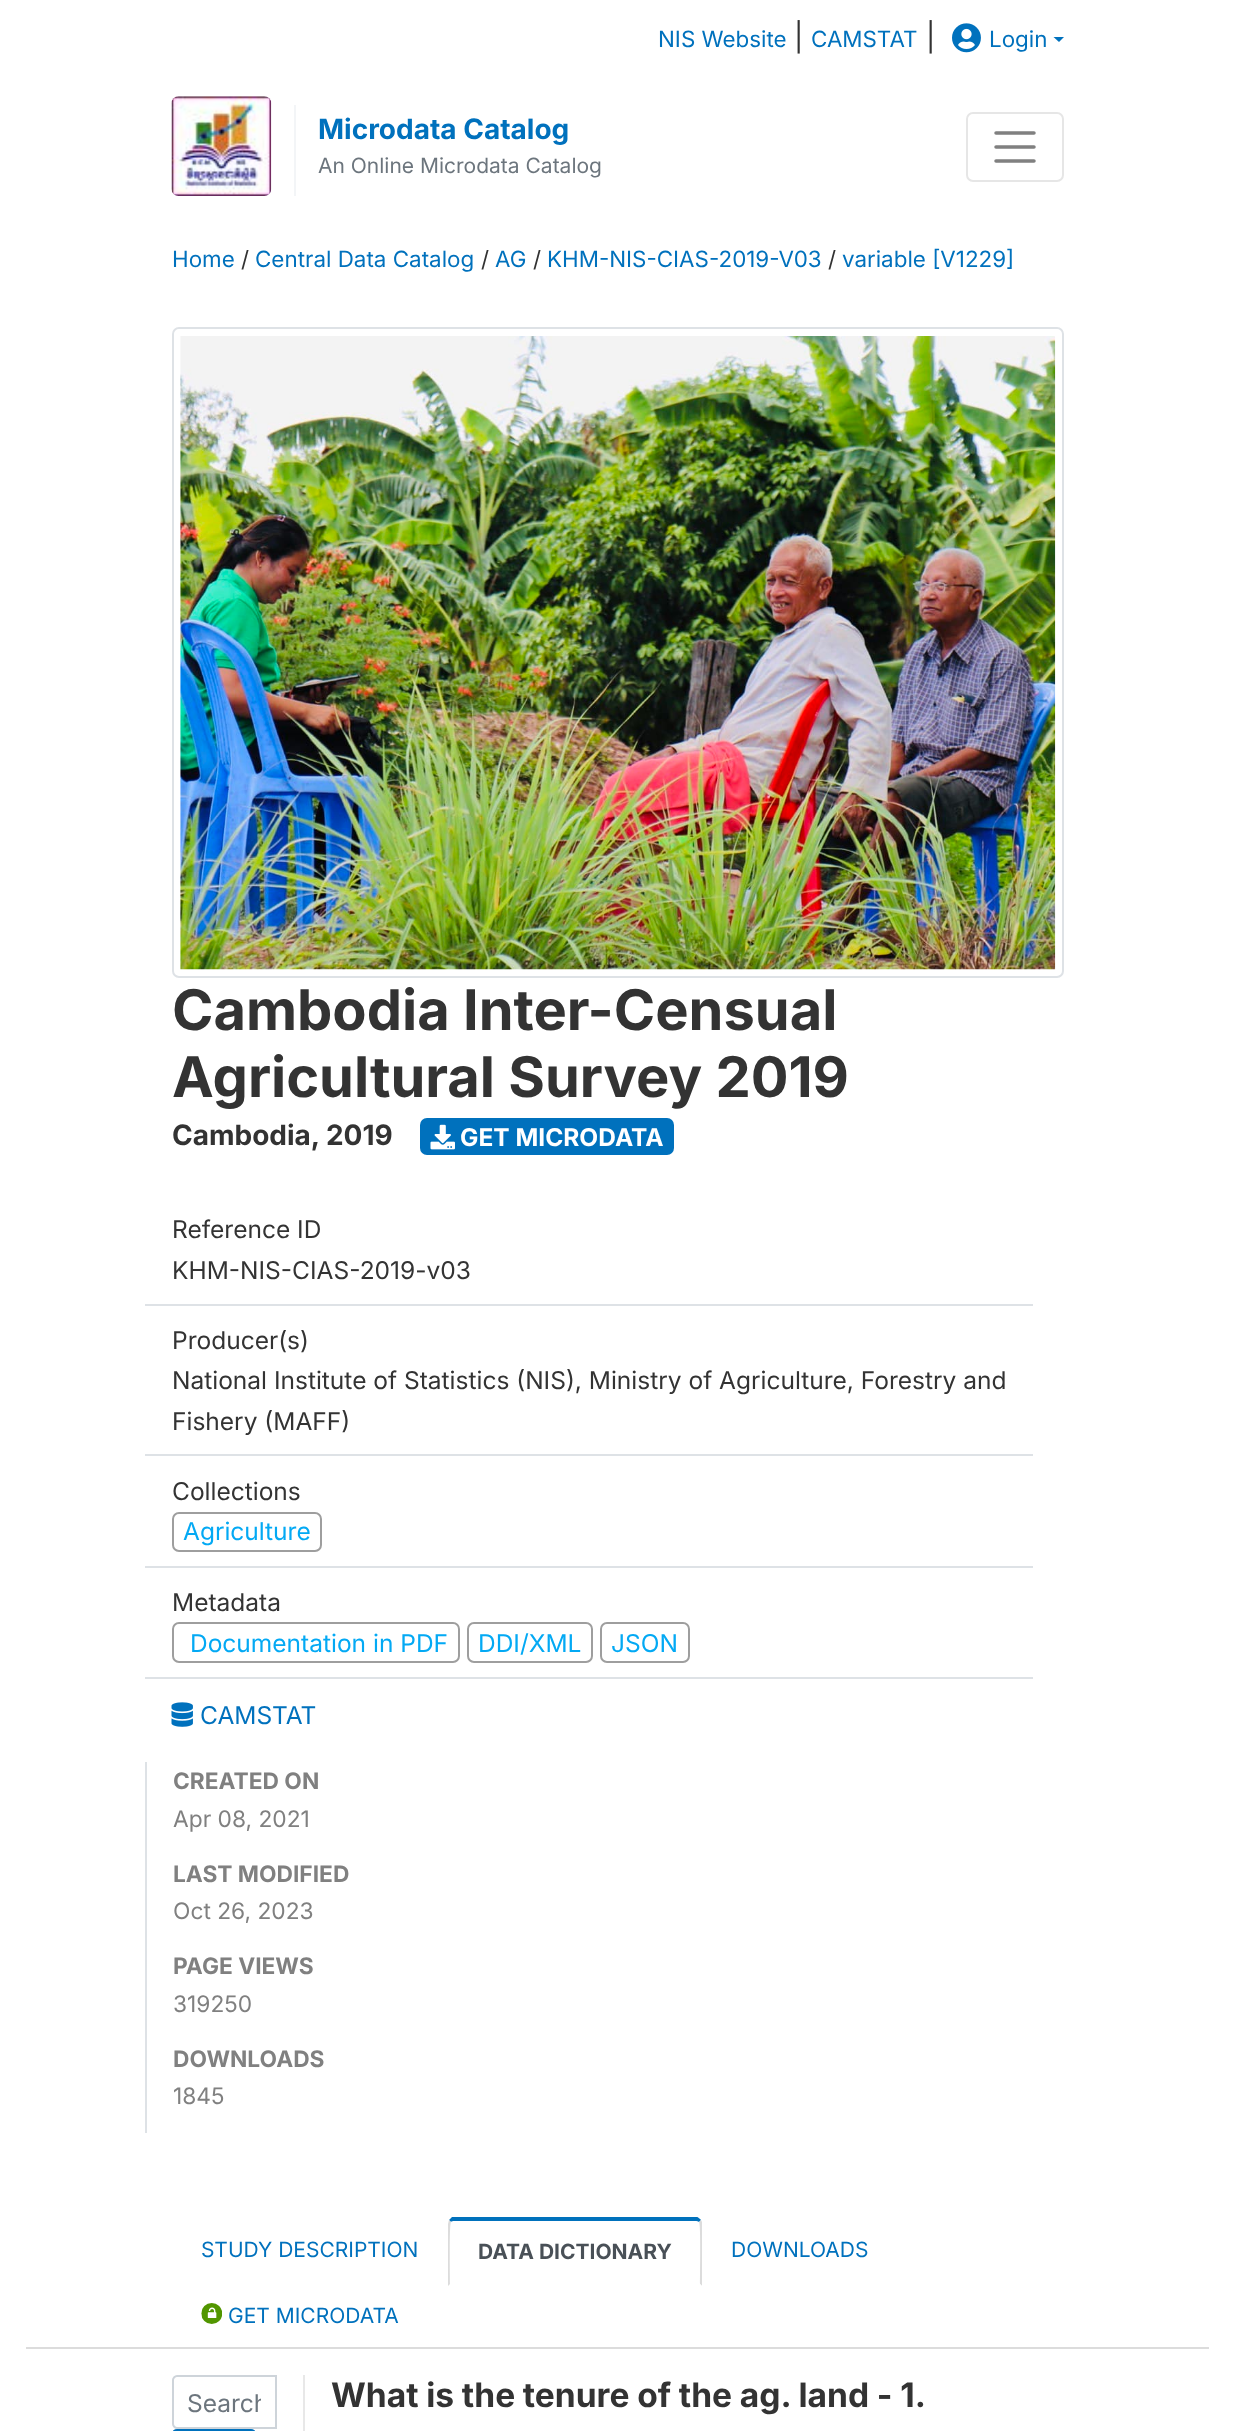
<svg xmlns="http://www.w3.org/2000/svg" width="1234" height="2431">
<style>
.a{font:22.4px Inter;fill:#0071bd}
.b{font:28px Inter;fill:#333}
.c{font:bold 28px Inter;fill:#0071bd}
.d{font:21px Inter;fill:#6c757d}
.e{font:22.4px Inter;fill:#333}
.f{font:bold 56px Inter;fill:#333}
.g{font:bold 28px Inter;fill:#333}
.h{font:bold 24.5px Inter;fill:#fff}
.i{font:24.5px Inter;fill:#333}
.j{font:24.5px Inter;fill:#03a9f4}
.k{font:24.5px Inter;fill:#0071bd}
.l{font:bold 22.75px Inter;fill:#808080}
.m{font:22.75px Inter;fill:#808080}
.n{font:21px Inter;fill:#0071bd}
.o{font:bold 21px Inter;fill:#495057}
.p{font:24.5px Inter;fill:#6c757d}
.q{font:bold 33.6px Inter;fill:#333}
</style>
<defs>
<clipPath id="clip1"><path d="M187 2387h74v30H187z"/></clipPath>
</defs>
<rect width="100%" height="100%" fill="#fff"/>
<image href="1.png" x="952" y="23" width="29" height="30"/>
<path fill="#0071bd" d="M1053.5 37h10.5l-5 5z"/>
<image href="2.png" x="171" y="96" width="101" height="100"/>
<path fill="#f3f5f7" d="M294 105h2v91H294z"/>
<rect fill="none" stroke="#e6e6e6" stroke-width="2" x="967" y="113" width="96" height="68" rx="6"/>
<path fill="none" stroke="#808080" stroke-width="3.5" stroke-linecap="round" d="M996 133h38m-38 14h38m-38 14h38"/>
<path fill="#dcdcdc" d="M26 2347h1183v2H26z"/>
<rect fill="none" stroke="#dee2e6" stroke-width="2" x="173" y="328" width="890" height="649" rx="6"/>
<image href="3.png" x="180" y="336" width="876" height="634"/>
<rect fill="#0071bd" x="420" y="1118" width="254" height="37" rx="7"/>
<image href="4.png" x="430" y="1124" width="25" height="26"/>
<path fill="#dee2e6" d="M145 1304h888v2H145z"/>
<path fill="#dee2e6" d="M145 1454h888v2H145z"/>
<path fill="#dee2e6" d="M145 1566h888v2H145z"/>
<rect fill="none" stroke="#9e9e9e" stroke-width="2" x="173" y="1513" width="148" height="38" rx="6"/>
<path fill="#dee2e6" d="M145 1677h888v2H145z"/>
<rect fill="none" stroke="#9e9e9e" stroke-width="2" x="173" y="1623" width="286" height="39" rx="6"/>
<rect fill="none" stroke="#9e9e9e" stroke-width="2" x="468" y="1623" width="124" height="39" rx="6"/>
<rect fill="none" stroke="#9e9e9e" stroke-width="2" x="601" y="1623" width="88" height="39" rx="6"/>
<image href="5.png" x="171" y="1702" width="22" height="25"/>
<path fill="#dee2e6" d="M145 1762h2v371H145z"/>
<path fill="#0071bc" d="M455 2221c-2 0-4 0-4 1l-2-2l3-3h245c1 0 3 2 4 3l-2 2c-1-1-2-1-4-1z"/>
<path fill="#dcdcdc" d="M701 2220l1 2v64l-2-2c0-7 1-60-1-62z"/>
<path fill="#fff" d="M702 2286l-2-2h-250l-2 2z"/>
<path fill="#dcdcdc" d="M448 2286l2-2c0-7-1-60 1-62l-2-2l-1 4z"/>
<image href="6.png" x="201" y="2303" width="21" height="21"/>
<path fill="none" stroke="#ced4da" stroke-width="2" d="M177 2376h99v52h-99c-2 0-4-2-4-4v-44c0-2 2-4 4-4z"/>
<rect fill="none" stroke="#0071bd" stroke-width="2" x="173" y="2430" width="82" height="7" rx="4"/>
<path fill="#e8e8e8" d="M303 2375h2v56H303z"/>
<text class="a" x="658" y="47">NIS Website</text>
<text class="b" x="794" y="47">|</text>
<text class="a" x="811" y="47">CAMSTAT</text>
<text class="b" x="926" y="47">|</text>
<text class="a" x="989" y="47">Login</text>
<text class="c" x="318" y="139">Microdata Catalog</text>
<text class="d" x="318" y="173">An Online Microdata Catalog</text>
<text class="a" x="172" y="267">Home</text>
<text class="e" x="241" y="267">/</text>
<text class="a" x="255" y="267">Central Data Catalog</text>
<text class="e" x="481" y="267">/</text>
<text class="a" x="495" y="267">AG</text>
<text class="e" x="533" y="267">/</text>
<text class="a" x="547" y="267">KHM-NIS-CIAS-2019-V03</text>
<text class="e" x="828" y="267">/</text>
<text class="a" x="842" y="267">variable [V1229]</text>
<text class="f" x="172" y="1030">Cambodia Inter-Censual</text>
<text class="f" x="172" y="1097">Agricultural Survey 2019</text>
<text class="g" x="172" y="1145">Cambodia, 2019</text>
<text class="h" x="460" y="1146">GET MICRODATA</text>
<text class="i" x="172" y="1238">Reference ID</text>
<text class="i" x="172" y="1279">KHM-NIS-CIAS-2019-v03</text>
<text class="i" x="172" y="1349">Producer(s)</text>
<text class="i" x="172" y="1389">National Institute of Statistics (NIS), Ministry of Agriculture, Forestry and</text>
<text class="i" x="172" y="1430">Fishery (MAFF)</text>
<text class="i" x="172" y="1500">Collections</text>
<text class="j" x="183" y="1540">Agriculture</text>
<text class="i" x="172" y="1611">Metadata</text>
<text class="j" x="190" y="1652">Documentation in PDF</text>
<text class="j" x="478" y="1652">DDI/XML</text>
<text class="j" x="611" y="1652">JSON</text>
<text class="k" x="200" y="1724">CAMSTAT</text>
<text class="l" x="173" y="1789">CREATED ON</text>
<text class="m" x="173" y="1827">Apr 08, 2021</text>
<text class="l" x="173" y="1882">LAST MODIFIED</text>
<text class="m" x="173" y="1919">Oct 26, 2023</text>
<text class="l" x="173" y="1974">PAGE VIEWS</text>
<text class="m" x="173" y="2012">319250</text>
<text class="l" x="173" y="2067">DOWNLOADS</text>
<text class="m" x="173" y="2104">1845</text>
<text class="n" x="201" y="2257">STUDY DESCRIPTION</text>
<text class="o" x="478" y="2259">DATA DICTIONARY</text>
<text class="n" x="731" y="2257">DOWNLOADS</text>
<text class="n" x="228" y="2323">GET MICRODATA</text>
<g clip-path="url(#clip1)">
<text class="p" x="187" y="2412">Search</text>
</g>
<text class="q" x="331" y="2407" word-spacing="-0.25">What is the tenure of the ag. land - 1.</text>
</svg>
